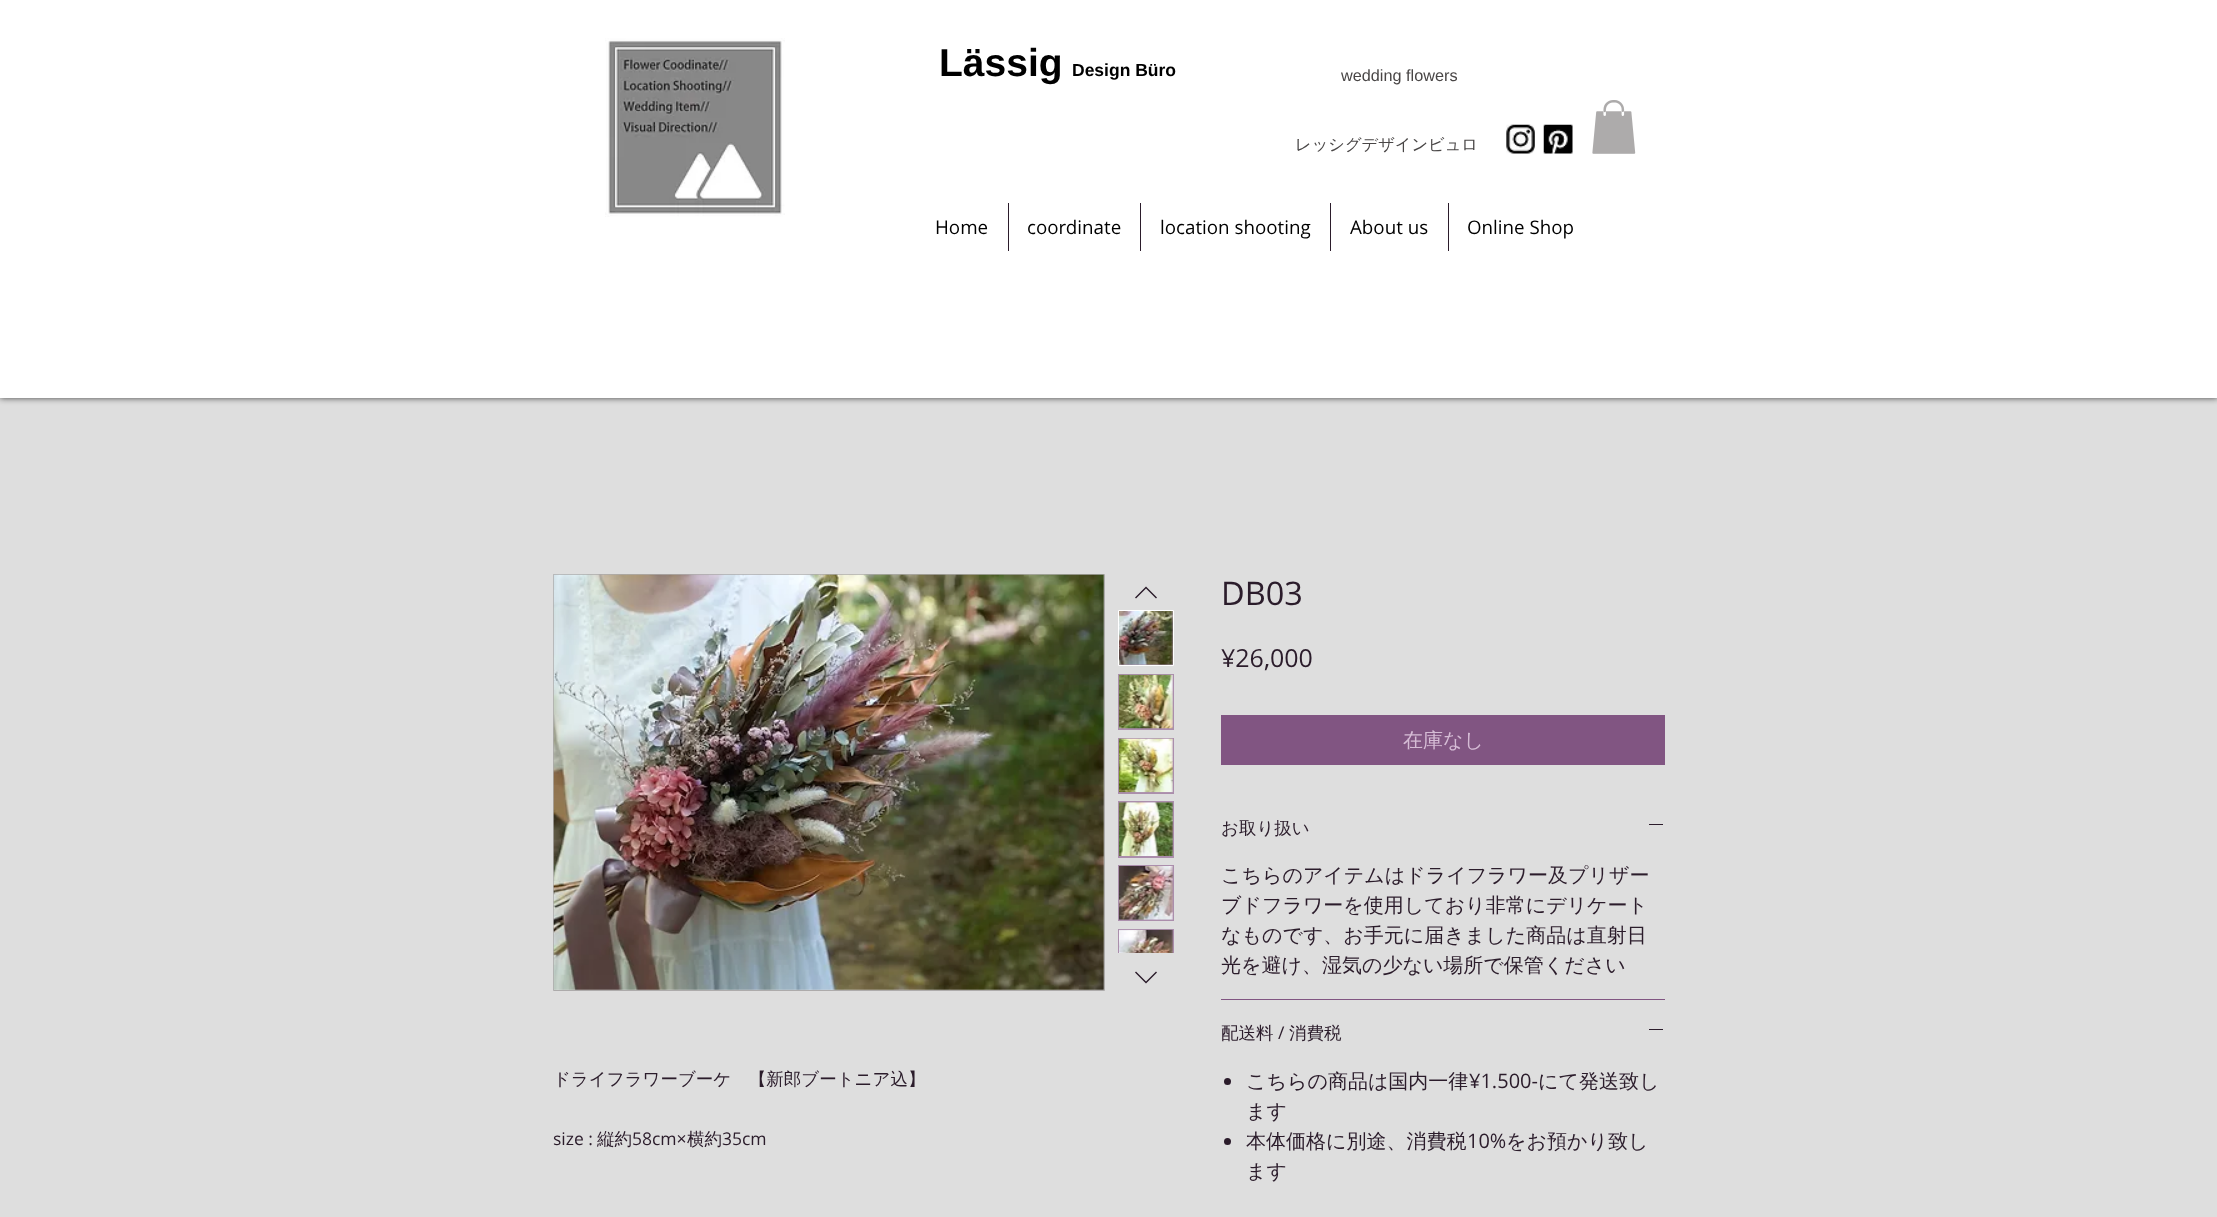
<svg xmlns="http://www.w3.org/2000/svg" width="2217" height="1217">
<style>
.a{font:bold 39px Liberation Sans;fill:#000}
.b{font:bold 17.5px Liberation Sans;fill:#000}
.c{font:16.25px Liberation Sans;fill:#494646}
.d{font:500 16.25px WenQuanYi Zen Hei;fill:#494646}
.e{font:18.75px Open Sans;fill:#000}
.f{font:500 17.5px WenQuanYi Zen Hei;fill:#2b1c2b}
.g{font:17.5px Open Sans;fill:#2b1c2b}
.h{font:32.5px Open Sans;fill:#2b1c2b}
.i{font:25px Open Sans;fill:#2b1c2b}
.j{font:500 20px WenQuanYi Zen Hei;fill:#d5bcd5}
.k{font:500 20px WenQuanYi Zen Hei;fill:#2b1c2b}
.l{font:20px Open Sans;fill:#2b1c2b}
</style>
<rect width="100%" height="100%" fill="#dedede"/>
<path fill="#000000b3" filter="blur(3px)" d="M0 -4h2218v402H0z"/>
<path fill="#fff" d="M0 0h2217v398H0z"/>
<image href="1.png" x="605" y="38" width="180" height="179"/>
<image href="2.png" x="1506" y="124" width="29" height="30"/>
<image href="3.png" x="1543" y="124" width="30" height="30"/>
<image href="4.png" x="1592" y="100" width="44" height="54"/>
<path fill="#2b1c2b" d="M1008 203h1v48H1008z"/>
<path fill="#2b1c2b" d="M1140 203h1v48H1140z"/>
<path fill="#2b1c2b" d="M1330 203h1v48H1330z"/>
<path fill="#2b1c2b" d="M1448 203h1v48H1448z"/>
<path fill="none" stroke="#adabab" d="M553.5 574.5h551v416H553.5z"/>
<image href="5.png" x="553" y="574" width="551" height="416"/>
<path fill="#2b1c2b" fill-rule="evenodd" d="M1146 586.5l11 11l-1 1l-10-10l-10 10l-1-1z"/>
<path fill="#ab8eac" stroke="#fff" d="M1118.5 610.5h55v55H1118.5z"/>
<image href="6.png" x="1119" y="611" width="54" height="54"/>
<path fill="#ab8eac" d="M1118 674h56v56H1118z"/>
<image href="7.png" x="1119" y="674" width="54" height="55"/>
<path fill="#ab8eac" d="M1118 738h56v56H1118z"/>
<image href="8.png" x="1119" y="738" width="54" height="55"/>
<path fill="#ab8eac" d="M1118 801h56v57H1118z"/>
<image href="9.png" x="1119" y="802" width="54" height="54"/>
<path fill="#ab8eac" d="M1118 865h56v56H1118z"/>
<image href="10.png" x="1119" y="866" width="54" height="54"/>
<path fill="#ab8eac" d="M1118 929h56v24H1118z"/>
<image href="11.png" x="1119" y="929" width="54" height="24"/>
<path fill="#2b1c2b" fill-rule="evenodd" d="M1156 971.5l1 1l-11 11l-11-11l1-1l10 10z"/>
<path fill="#815582" d="M1221 715h444v50H1221z"/>
<path fill="#815582" d="M1221 999h444v1H1221z"/>
<path fill="#2b1c2b" d="M1649 824h14v1H1649z"/>
<path fill="#2b1c2b" d="M1649 1029h14v1H1649z"/>
<circle fill="#2b1c2b" cx="1227.5" cy="1081.5" r="3.5"/>
<circle fill="#2b1c2b" cx="1227.5" cy="1141.5" r="3.5"/>
<text class="a" x="939" y="76">Lässig</text>
<text class="b" x="1072" y="76">Design Büro</text>
<text class="c" x="1341" y="81">wedding flowers</text>
<text class="d" x="1295" y="150">レッシグデザインビュロ</text>
<text class="e" x="935" y="234">Home</text>
<text class="e" x="1027" y="234">coordinate</text>
<text class="e" x="1160" y="234">location shooting</text>
<text class="e" x="1350" y="234">About us</text>
<text class="e" x="1467" y="234">Online Shop</text>
<text class="f" x="553" y="1085">ドライフラワーブーケ　【新郎ブートニア込】</text>
<text class="g" x="553" y="1145">size :</text>
<text class="f" x="597" y="1145">縦約</text>
<text class="g" x="632" y="1145">58cm×</text>
<text class="f" x="687" y="1145">横約</text>
<text class="g" x="722" y="1145">35cm</text>
<text class="h" x="1221" y="605">DB03</text>
<text class="i" x="1221" y="667">¥26,000</text>
<text class="j" x="1403" y="747">在庫なし</text>
<text class="f" x="1221" y="834">お取り扱い</text>
<text class="k" x="1221" y="882">こちらのアイテムはドライフラワー及プリザー</text>
<text class="k" x="1221" y="912">ブドフラワーを使用しており非常にデリケート</text>
<text class="k" x="1221" y="942">なものです、お手元に届きました商品は直射日</text>
<text class="k" x="1221" y="972">光を避け、湿気の少ない場所で保管ください</text>
<text class="f" x="1221" y="1039">配送料</text>
<text class="g" x="1278" y="1039">/</text>
<text class="f" x="1289" y="1039">消費税</text>
<text class="k" x="1246" y="1088">こちらの商品は国内一律</text>
<text class="l" x="1469" y="1088">¥1.500-</text>
<text class="k" x="1538" y="1088">にて発送致し</text>
<text class="k" x="1246" y="1118">ます</text>
<text class="k" x="1246" y="1148">本体価格に別途、消費税</text>
<text class="l" x="1467" y="1148">10%</text>
<text class="k" x="1506" y="1148">をお預かり致し</text>
<text class="k" x="1246" y="1178">ます</text>
</svg>
